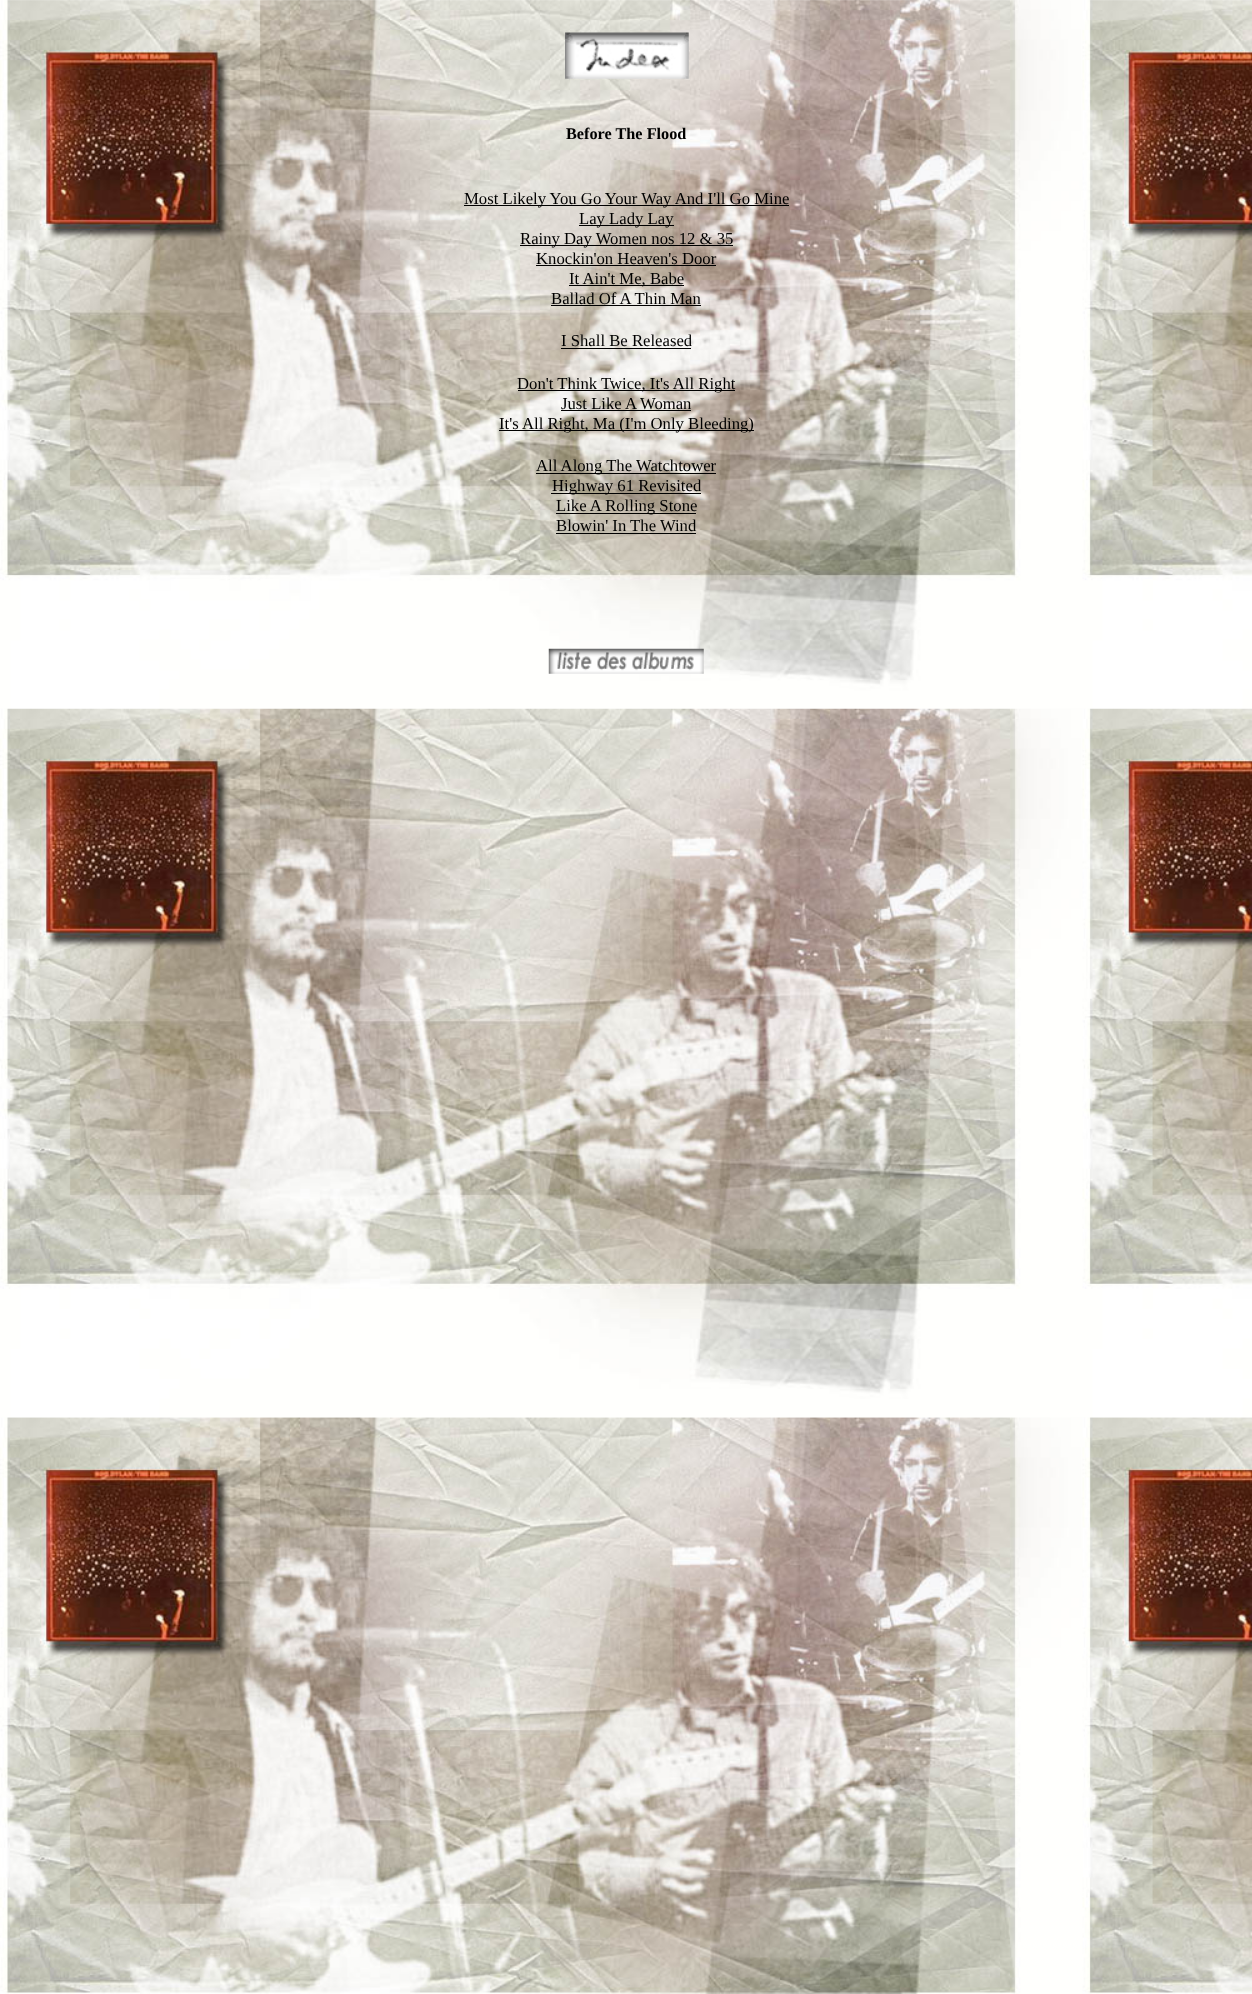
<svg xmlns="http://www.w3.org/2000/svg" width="1252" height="1994">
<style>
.a{font:bold 16.25px Liberation Serif;fill:#000}
.b{font:16.7px Liberation Serif;fill:#000}
</style>
<rect width="100%" height="100%" fill="#fff"/>
<image href="1.png" x="0" y="0" width="1252" height="1994"/>
<image href="2.png" x="565" y="32" width="124" height="47"/>
<path fill="#000" d="M464 205h325v1H464z"/>
<path fill="#000" d="M579 225h95v1H579z"/>
<path fill="#000" d="M520 245h213v1H520z"/>
<path fill="#000" d="M536 265h180v1H536z"/>
<path fill="#000" d="M569 285h115v1H569z"/>
<path fill="#000" d="M551 305h150v1H551z"/>
<path fill="#000" d="M561 348h130v1H561z"/>
<path fill="#000" d="M518 390h217v1H518z"/>
<path fill="#000" d="M561 410h130v1H561z"/>
<path fill="#000" d="M499 430h255v1H499z"/>
<path fill="#000" d="M536 473h180v1H536z"/>
<path fill="#000" d="M551 493h150v1H551z"/>
<path fill="#000" d="M556 513h140v1H556z"/>
<path fill="#000" d="M556 533h140v1H556z"/>
<image href="3.png" x="548" y="648" width="156" height="26"/>
<text class="a" x="566" y="139">Before The Flood</text>
<text class="b" x="464" y="204">Most Likely You Go Your Way And I'll Go Mine</text>
<text class="b" x="579" y="224">Lay Lady Lay</text>
<text class="b" x="520" y="244">Rainy Day Women nos 12 &amp; 35</text>
<text class="b" x="536" y="264">Knockin'on Heaven's Door</text>
<text class="b" x="569" y="284">It Ain't Me, Babe</text>
<text class="b" x="551" y="304">Ballad Of A Thin Man</text>
<text class="b" x="561" y="346">I Shall Be Released</text>
<text class="b" x="517" y="389">Don't Think Twice, It's All Right</text>
<text class="b" x="561" y="409">Just Like A Woman</text>
<text class="b" x="499" y="429">It's All Right, Ma (I'm Only Bleeding)</text>
<text class="b" x="536" y="471">All Along The Watchtower</text>
<text class="b" x="552" y="491">Highway 61 Revisited</text>
<text class="b" x="556" y="511">Like A Rolling Stone</text>
<text class="b" x="556" y="531">Blowin' In The Wind</text>
</svg>
